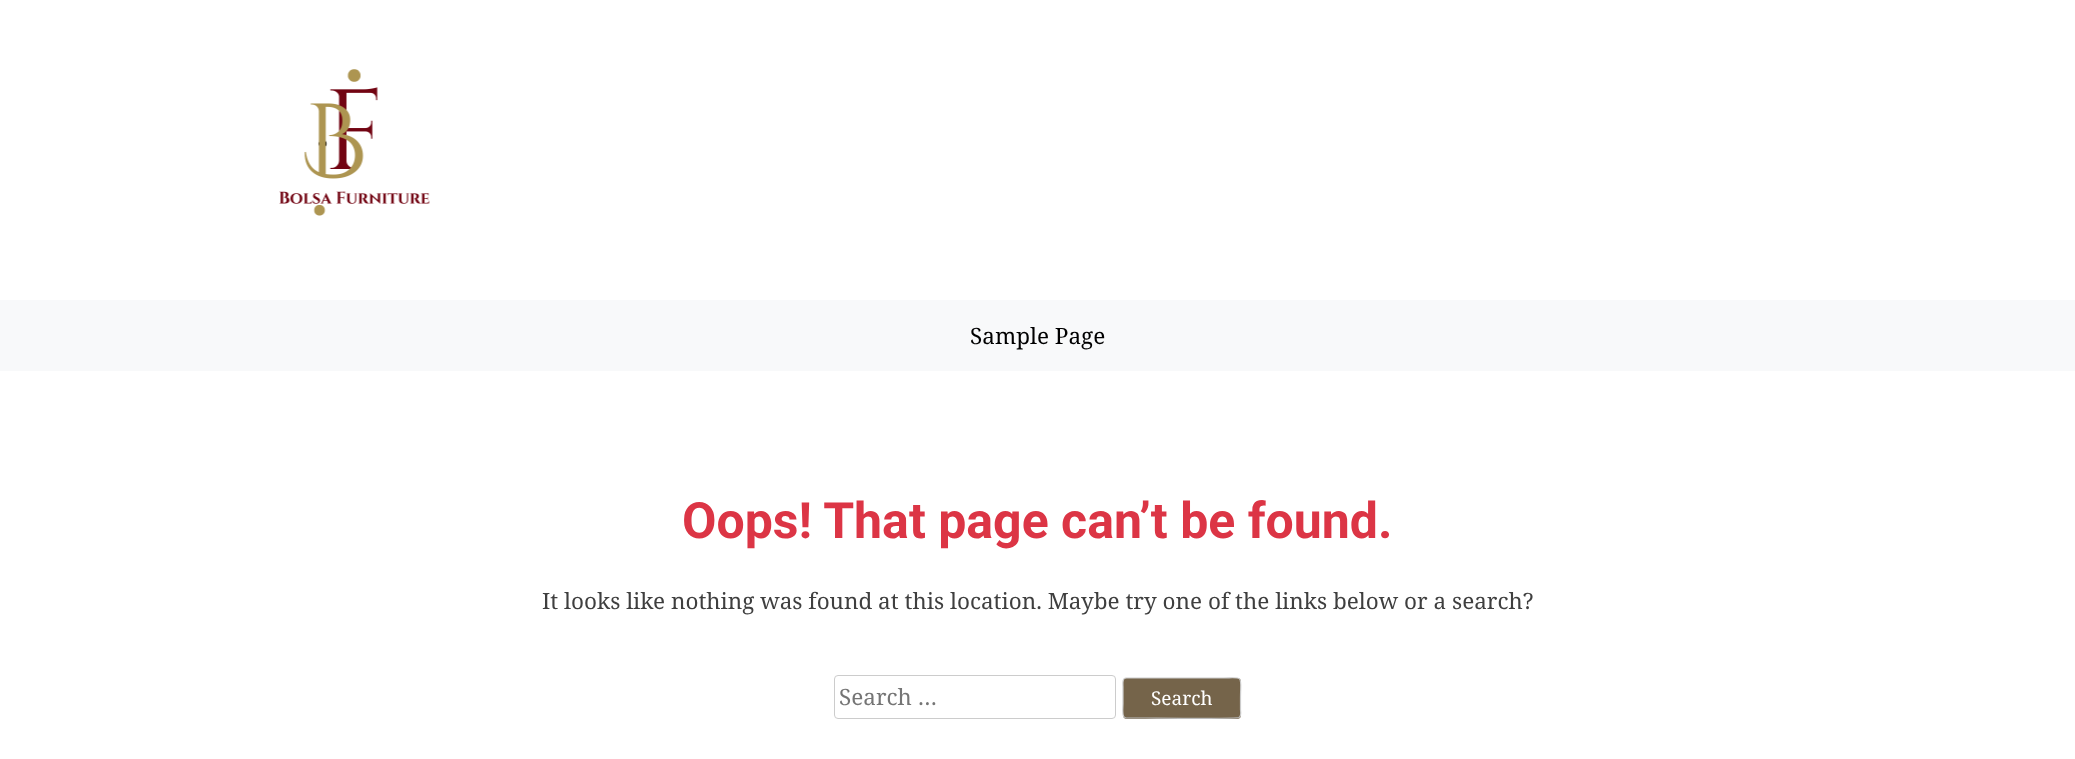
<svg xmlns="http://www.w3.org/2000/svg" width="2075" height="759">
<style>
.a{font:22.5px Noto Serif;fill:#000}
.b{font:bold 50px Roboto;fill:#dc3545}
.c{font:22.5px Noto Serif;fill:#3f3f3f}
.d{font:22.5px Noto Serif;fill:#757575}
.e{font:19px Noto Serif;fill:#fff}
</style>
<rect width="100%" height="100%" fill="#fff"/>
<image href="1.png" x="279" y="69" width="151" height="147"/>
<path fill="#f8f9fa" d="M0 300h2075v71H0z"/>
<rect fill="none" stroke="#ccc" x="834.5" y="675.5" width="281" height="43" rx="3.5"/>
<rect fill="#75644a" x="1123" y="678" width="118" height="41" rx="4"/>
<path fill="none" stroke="#bbb" stroke-width="1.2" d="M1239.5 717l-.5 .5c-2 1.5-84.5 .5-94 .5h-19l-2-1"/>
<path fill="none" stroke="#ccc" stroke-width="1.2" d="M1124 717c-2-2-1-10.5-1-13v-17c0-2.5-1-9 3-9h93c26 0 21.5-4.5 21.5 20v11.5c0 1.5 1 6-1 7.5"/>
<text class="a" x="970" y="344">Sample Page</text>
<text class="b" x="682" y="538">Oops! That page can’t be found.</text>
<text class="c" x="542" y="609">It looks like nothing was found at this location. Maybe try one of the links below or a search?</text>
<text class="d" x="839" y="705">Search …</text>
<text class="e" x="1151" y="705">Search</text>
</svg>
